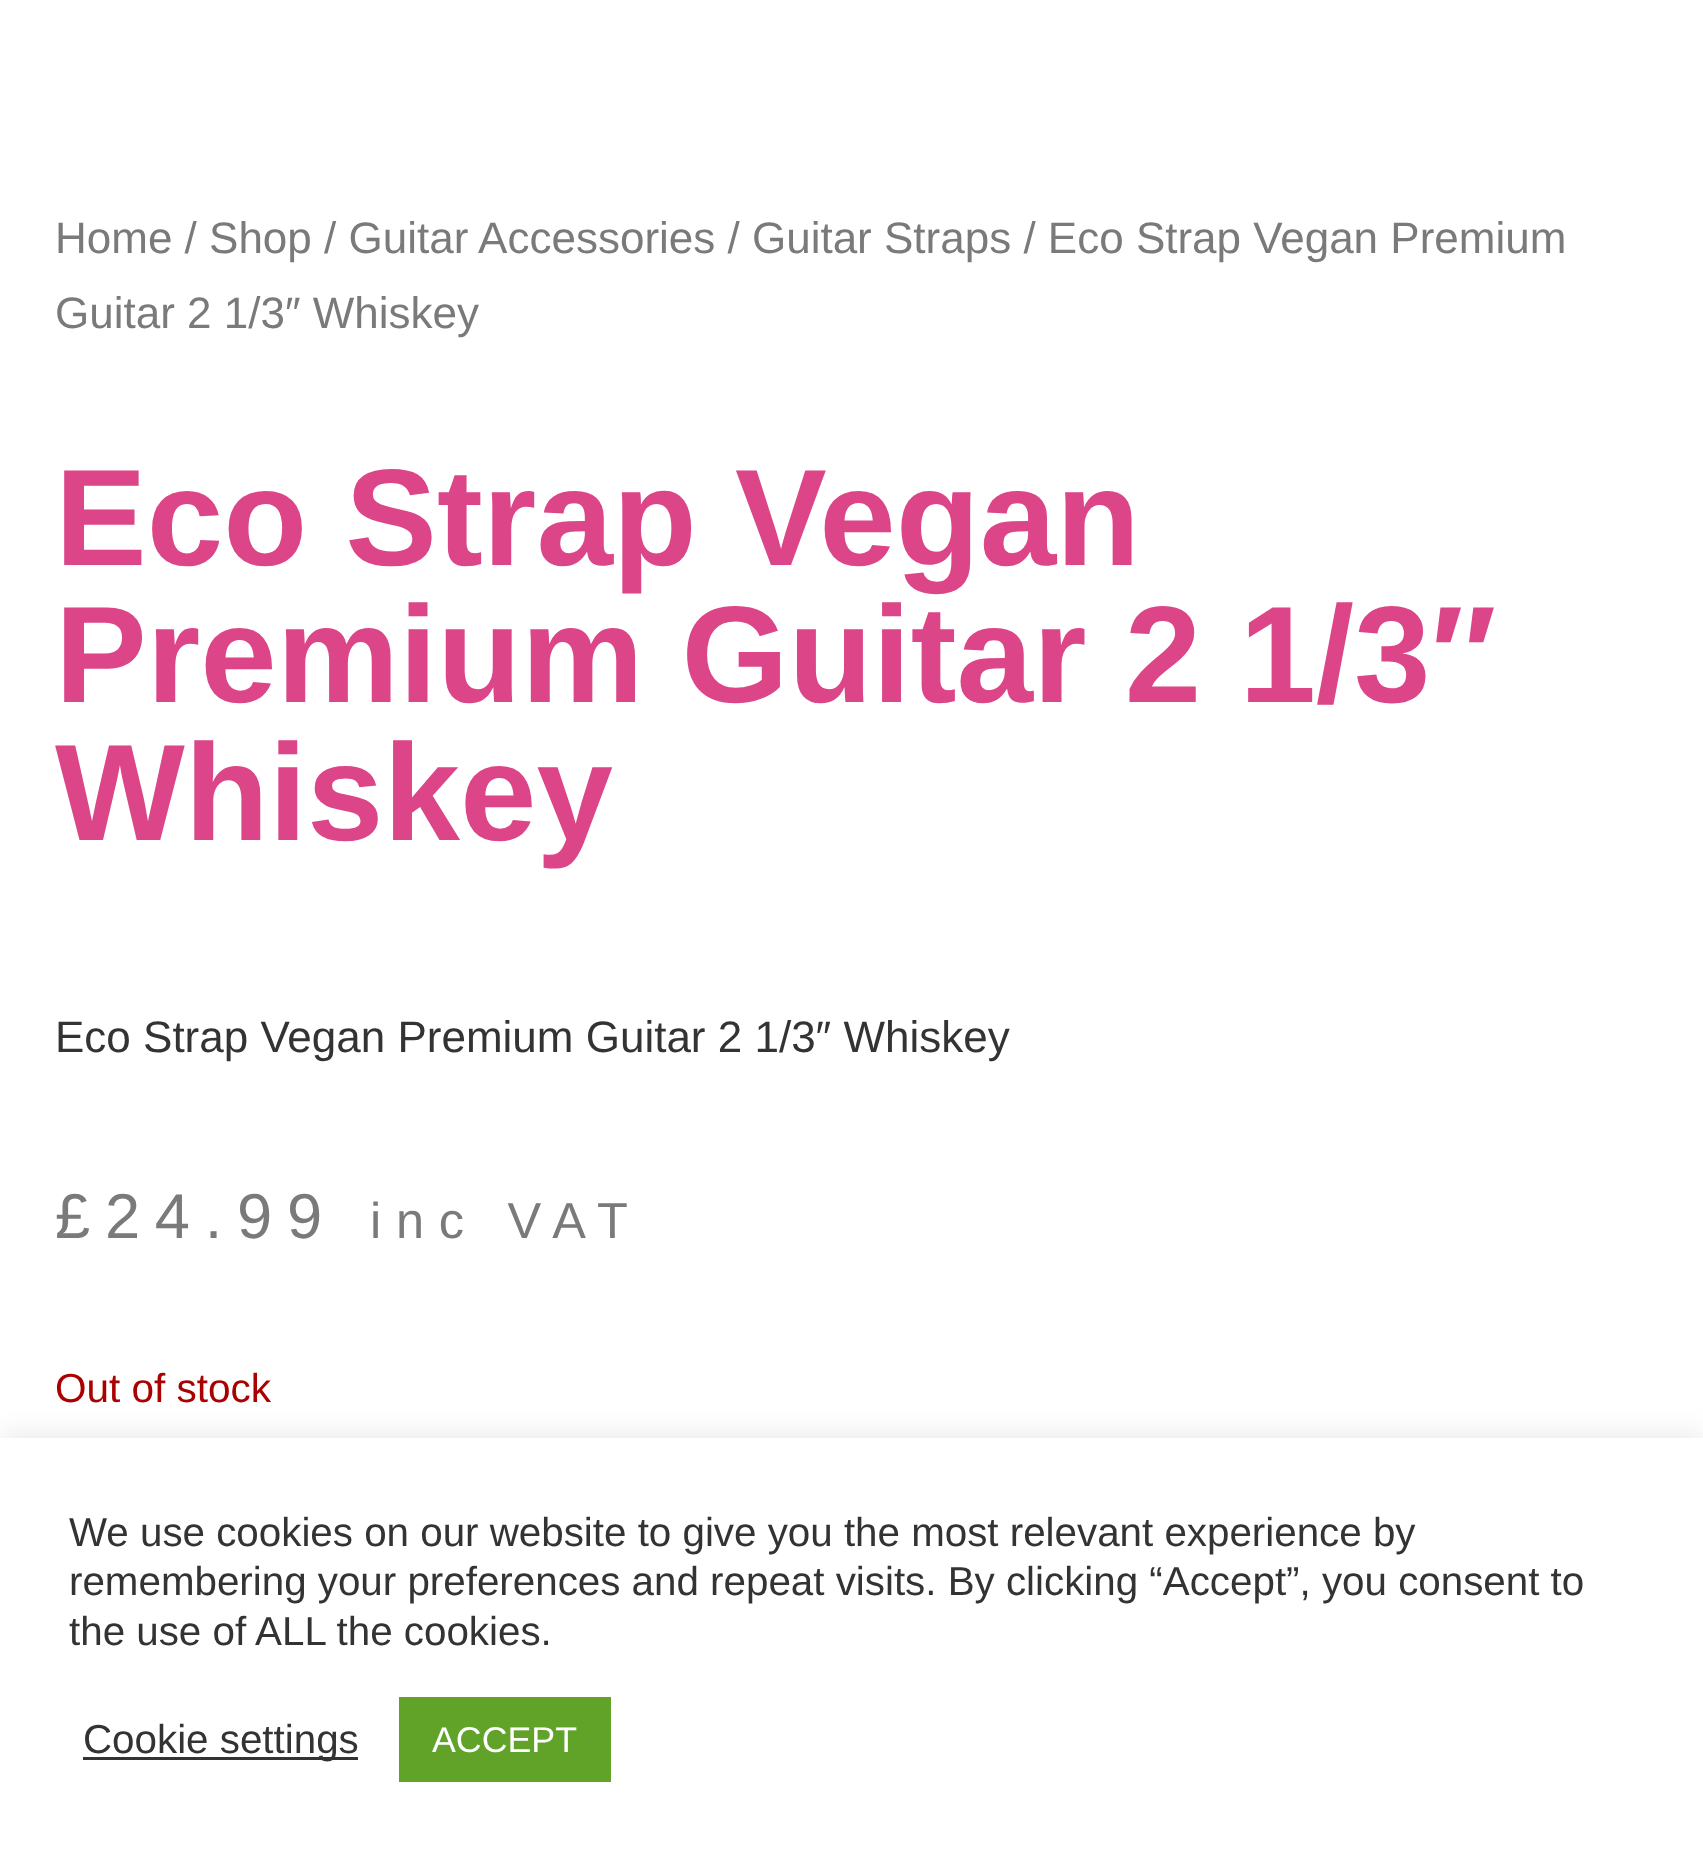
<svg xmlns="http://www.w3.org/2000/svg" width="1703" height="1864">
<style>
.a{font:44px Liberation Sans;fill:#7a7a7a}
.b{font:bold 137.5px Liberation Sans;fill:#dc4588}
.c{font:44px Liberation Sans;fill:#333}
.d{font:63.25px Liberation Sans;letter-spacing:14.75px;fill:#7a7a7a}
.e{font:50.5px Liberation Sans;letter-spacing:14.75px;fill:#7a7a7a}
.f{font:40.5px Liberation Sans;fill:#a00}
.g{font:40.35px Liberation Sans;fill:#333}
.h{font:35.75px Liberation Sans;fill:#fff}
</style>
<rect width="100%" height="100%" fill="#fff"/>
<path fill="#acabab4d" filter="blur(14px)" d="M0 1436h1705v426H0z"/>
<path fill="#fff" d="M0 1438h1703v426H0z"/>
<path fill="#333" d="M83 1757h275v3H83z"/>
<path fill="#61a229" d="M399 1697h212v85H399z"/>
<text class="a" x="55" y="253">Home / Shop / Guitar Accessories / Guitar Straps / Eco Strap Vegan Premium</text>
<text class="a" x="55" y="328">Guitar 2 1/3″ Whiskey</text>
<text class="b" x="55" y="565">Eco Strap Vegan</text>
<text class="b" x="55" y="702">Premium Guitar 2 1/3″</text>
<text class="b" x="55" y="840">Whiskey</text>
<text class="c" x="55" y="1052">Eco Strap Vegan Premium Guitar 2 1/3″ Whiskey</text>
<text class="d" x="55" y="1238">£24.99</text>
<text class="e" x="370" y="1238">inc VAT</text>
<text class="f" x="55" y="1402">Out of stock</text>
<text class="g" x="69" y="1546">We use cookies on our website to give you the most relevant experience by</text>
<text class="g" x="69" y="1595">remembering your preferences and repeat visits. By clicking “Accept”, you consent to</text>
<text class="g" x="69" y="1645">the use of ALL the cookies.</text>
<text class="g" x="83" y="1753">Cookie settings</text>
<text class="h" x="432" y="1752">ACCEPT</text>
</svg>
